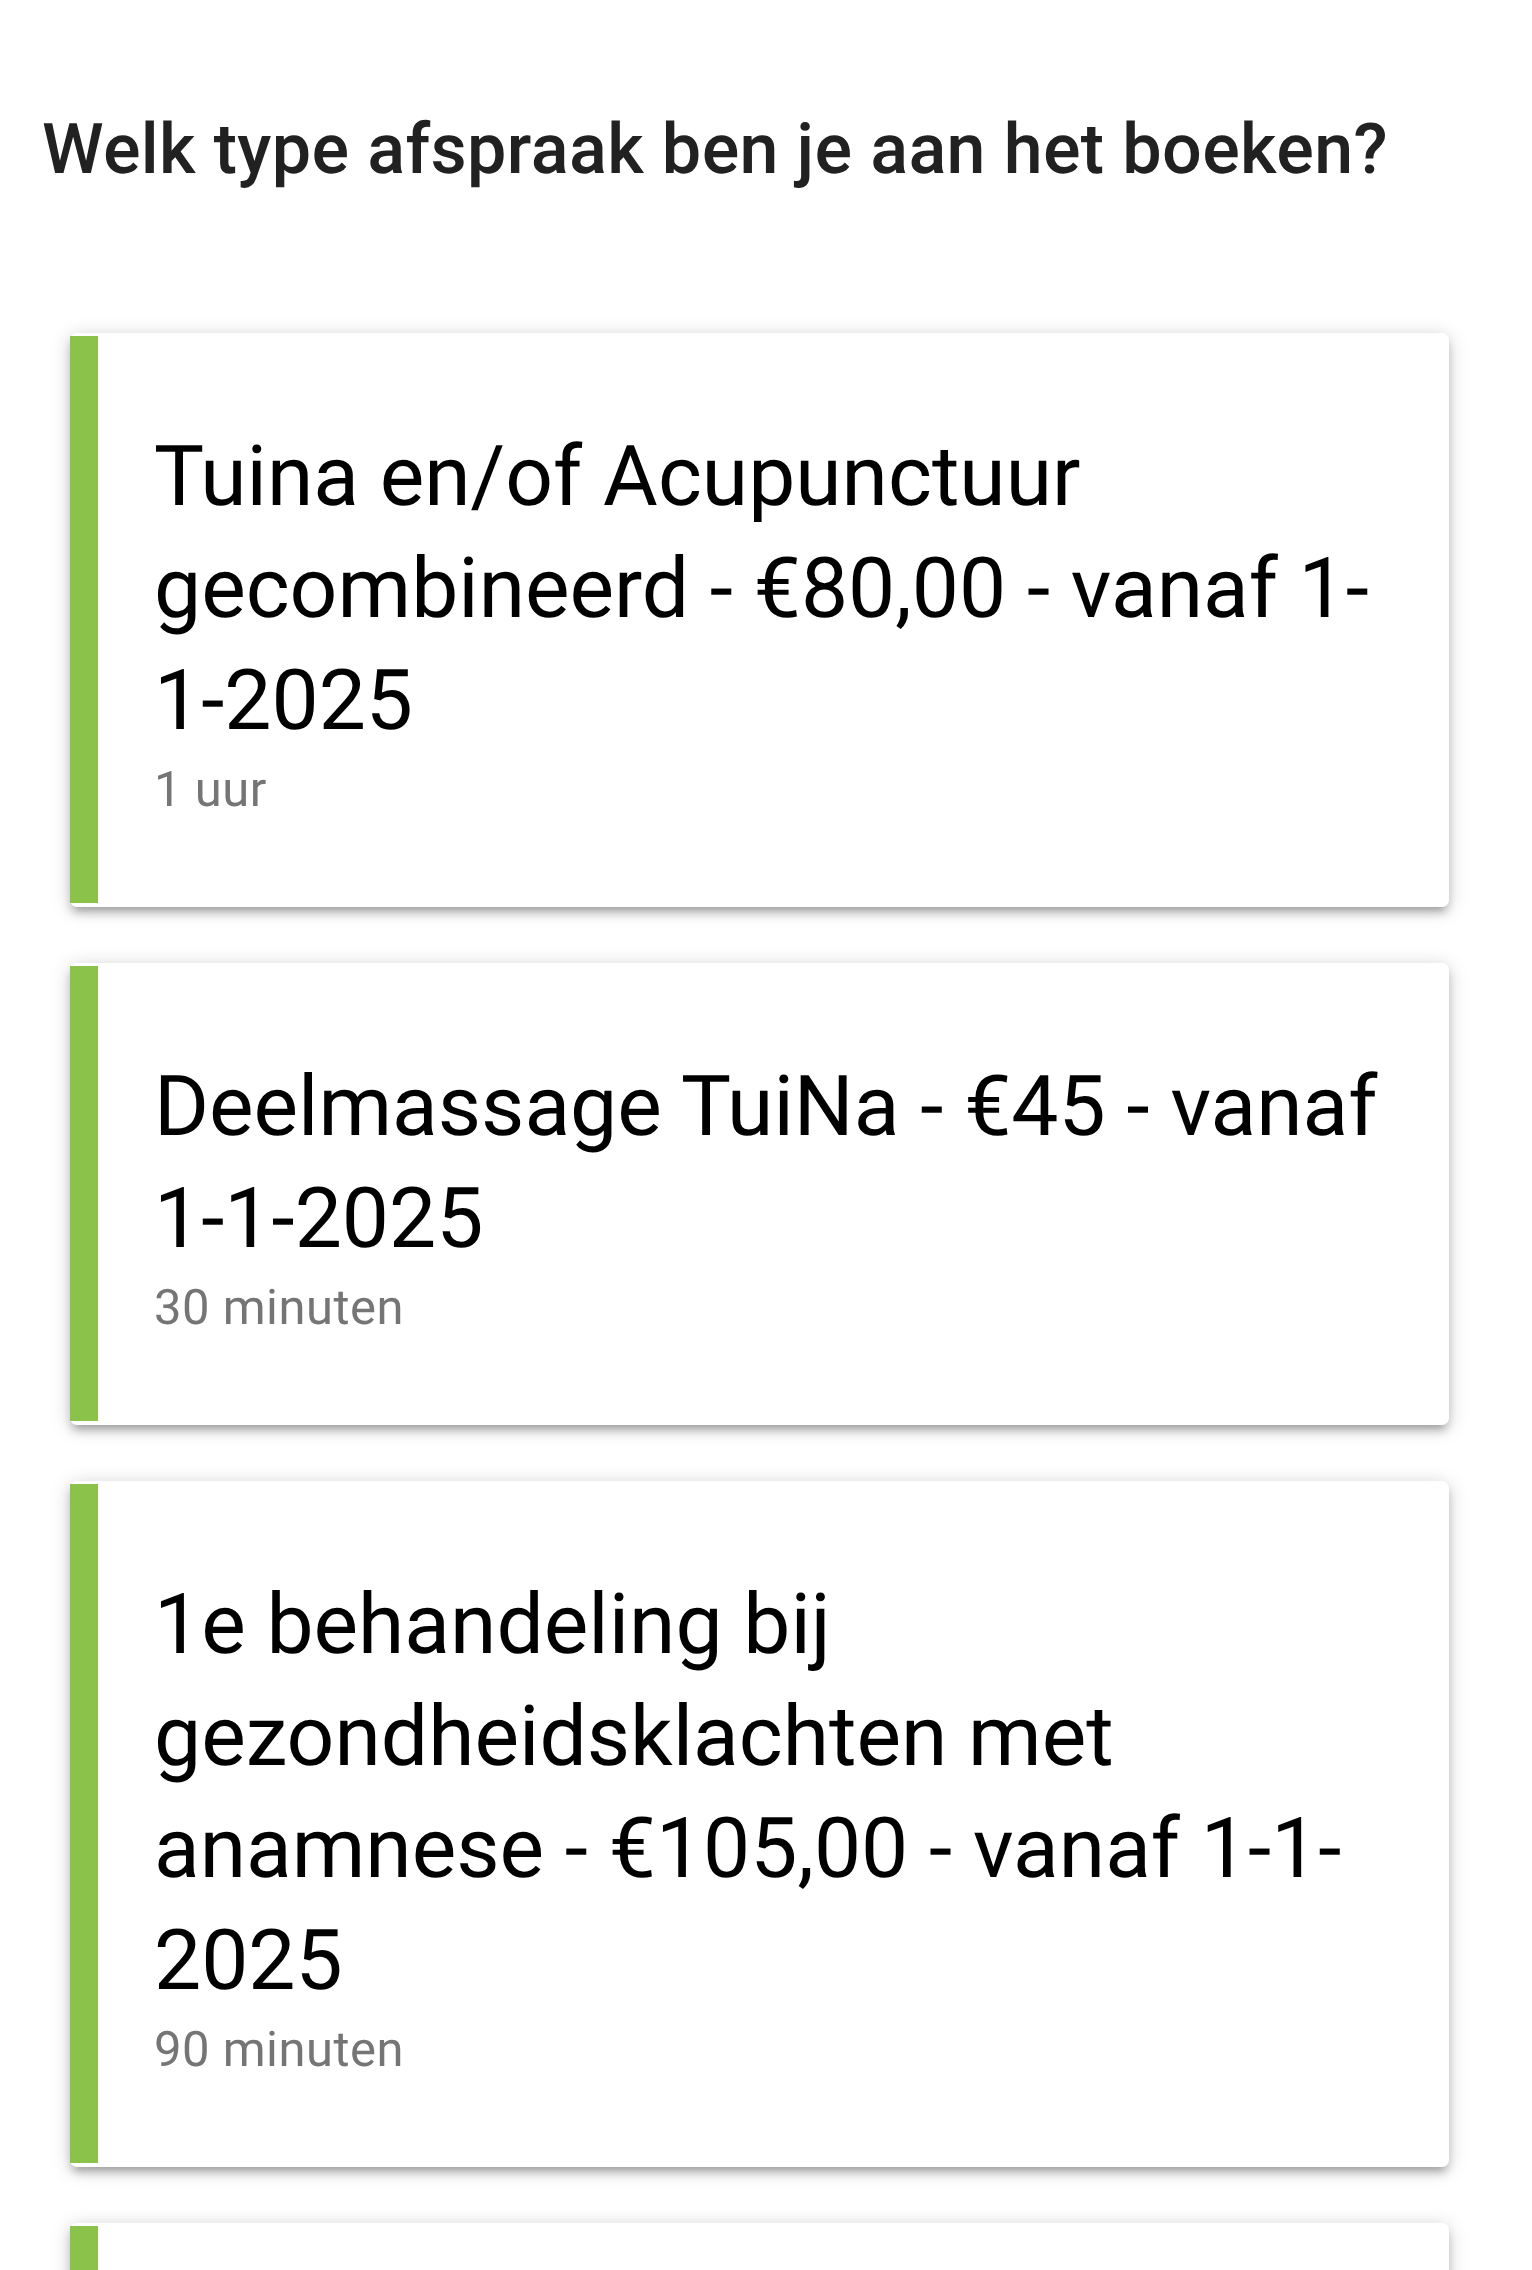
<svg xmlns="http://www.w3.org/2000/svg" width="1532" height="2270">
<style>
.a{font:500 70px Roboto;letter-spacing:0.35px;fill:#212121}
.b{font:84px Roboto;fill:#000}
.c{font:49px Roboto;letter-spacing:0.5px;fill:#757575}
</style>
<rect width="100%" height="100%" fill="#fff"/>
<path fill="#0000001f" filter="blur(2px)" d="M77 350h1365v560H77z"/>
<rect fill="#00000024" filter="blur(3.5px)" x="70" y="340" width="1379" height="574" rx="7"/>
<rect fill="#00000033" filter="blur(9px)" x="70" y="336" width="1379" height="574" rx="7"/>
<rect fill="#fff" x="70" y="333" width="1379" height="574" rx="7"/>
<path fill="#8bc34a" d="M70 336h28v567H70z"/>
<path fill="#0000001f" filter="blur(2px)" d="M77 980h1365v448H77z"/>
<rect fill="#00000024" filter="blur(3.5px)" x="70" y="970" width="1379" height="462" rx="7"/>
<rect fill="#00000033" filter="blur(9px)" x="70" y="966" width="1379" height="462" rx="7"/>
<rect fill="#fff" x="70" y="963" width="1379" height="462" rx="7"/>
<path fill="#8bc34a" d="M70 966h28v455H70z"/>
<path fill="#0000001f" filter="blur(2px)" d="M77 1498h1365v672H77z"/>
<rect fill="#00000024" filter="blur(3.5px)" x="70" y="1488" width="1379" height="686" rx="7"/>
<rect fill="#00000033" filter="blur(9px)" x="70" y="1484" width="1379" height="686" rx="7"/>
<rect fill="#fff" x="70" y="1481" width="1379" height="686" rx="7"/>
<path fill="#8bc34a" d="M70 1484h28v679H70z"/>
<rect fill="#00000024" filter="blur(3.5px)" x="70" y="2230" width="1379" height="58" rx="7"/>
<rect fill="#00000033" filter="blur(9px)" x="70" y="2226" width="1379" height="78" rx="7"/>
<rect fill="#fff" x="70" y="2223" width="1379" height="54" rx="7"/>
<path fill="#8bc34a" d="M70 2226h28v44H70z"/>
<text class="a" x="42" y="173">Welk type afspraak ben je aan het boeken?</text>
<text class="b" x="154" y="505">Tuina en/of Acupunctuur</text>
<text class="b" x="154" y="617">gecombineerd - €80,00 - vanaf 1-</text>
<text class="b" x="154" y="729">1-2025</text>
<text class="c" x="154" y="806">1 uur</text>
<text class="b" x="154" y="1135">Deelmassage TuiNa - €45 - vanaf</text>
<text class="b" x="154" y="1247">1-1-2025</text>
<text class="c" x="154" y="1324">30 minuten</text>
<text class="b" x="154" y="1653">1e behandeling bij</text>
<text class="b" x="154" y="1765">gezondheidsklachten met</text>
<text class="b" x="154" y="1877">anamnese - €105,00 - vanaf 1-1-</text>
<text class="b" x="154" y="1989">2025</text>
<text class="c" x="154" y="2066">90 minuten</text>
</svg>
